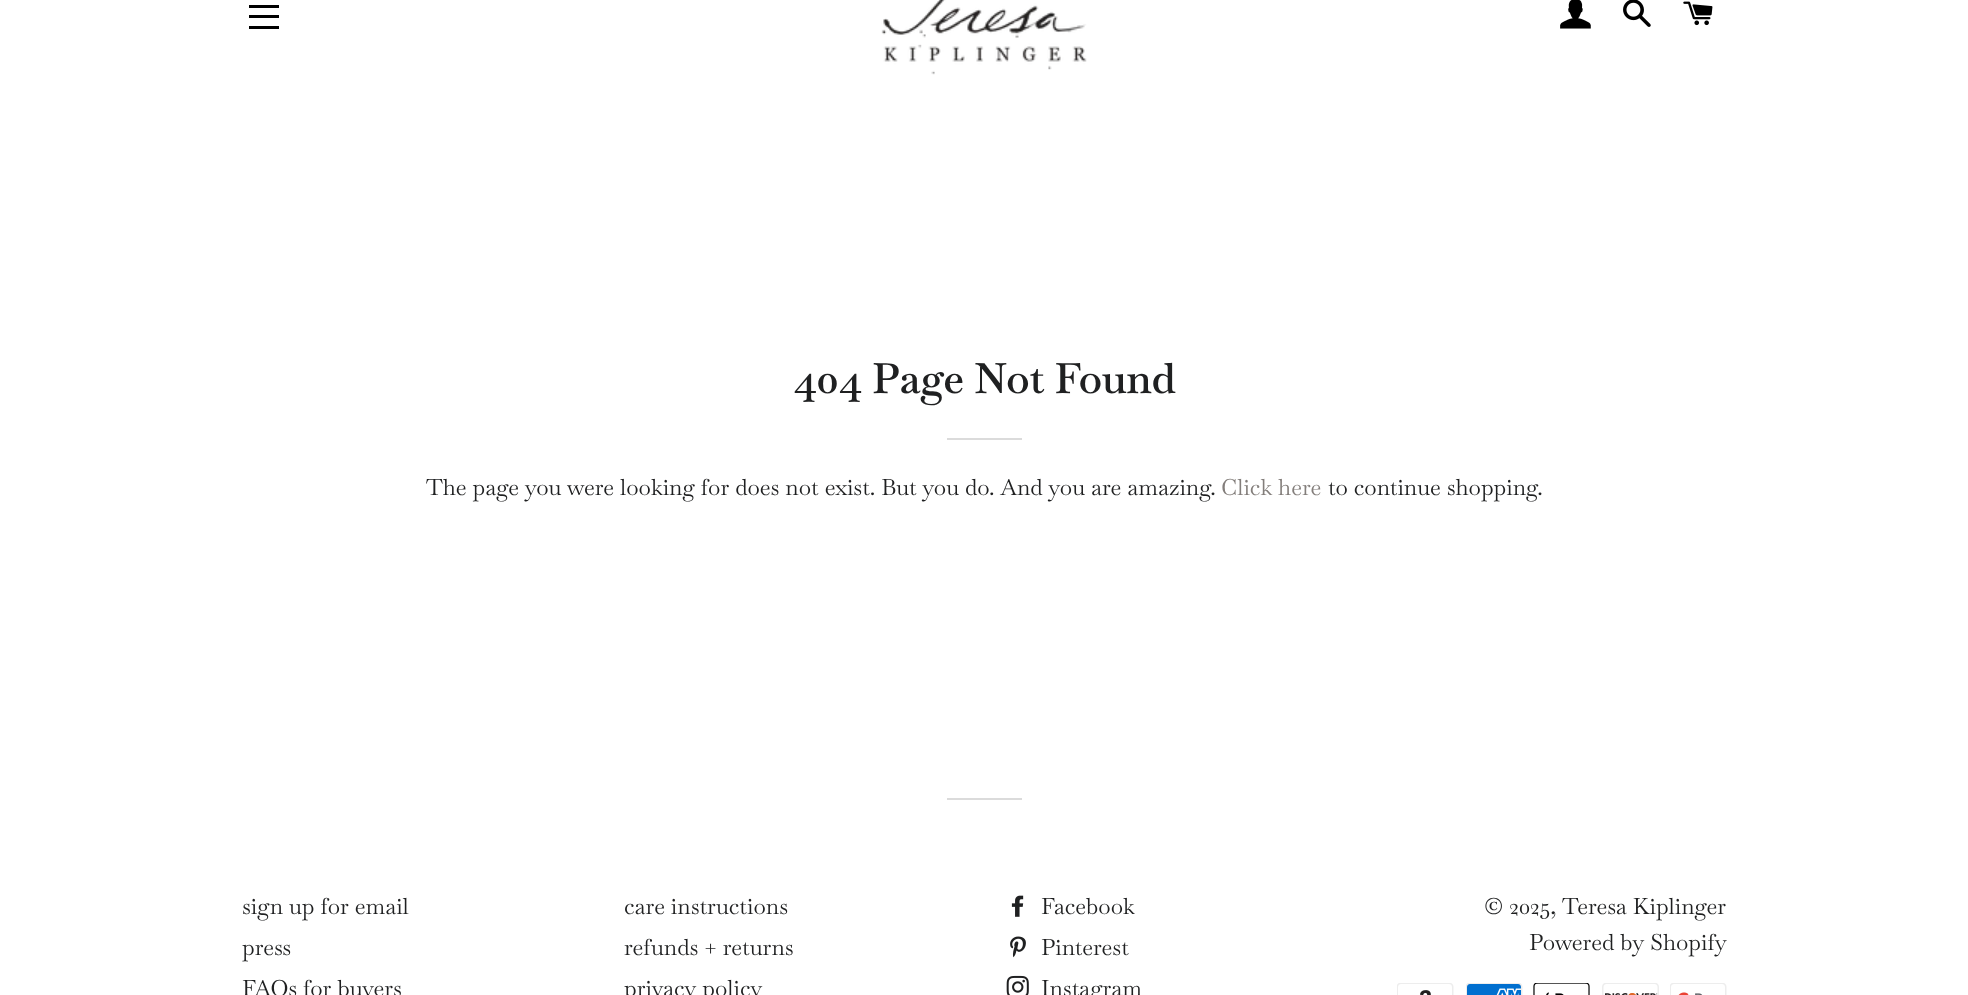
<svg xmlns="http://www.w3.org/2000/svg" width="1968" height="995">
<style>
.a{font:600 42px Baskervville;fill:#1f2021}
.b{font:22.5px Baskervville;fill:#1f2021}
.c{font:22.5px Baskervville;fill:#837e7b}
</style>
<rect width="100%" height="100%" fill="#fff"/>
<path fill="#000" d="M249 5h30v3H249z"/>
<path fill="#000" d="M249 15h30v3H249z"/>
<path fill="#000" d="M249 26h30v3H249z"/>
<image href="1.png" x="881" y="0" width="206" height="75"/>
<image href="2.png" x="1560" y="0" width="31" height="29"/>
<image href="3.png" x="1623" y="0" width="28" height="27"/>
<image href="4.png" x="1683" y="1" width="30" height="25"/>
<path fill="#dbdbdb" d="M947 438h75v2H947z"/>
<path fill="#dbdbdb" d="M947 798h75v2H947z"/>
<image href="5.png" x="1011" y="895" width="13" height="22"/>
<image href="6.png" x="1010" y="936" width="16" height="22"/>
<image href="7.png" x="1006" y="975" width="23" height="20"/>
<image href="8.png" x="1397" y="983" width="57" height="12"/>
<image href="9.png" x="1466" y="983" width="57" height="12"/>
<image href="10.png" x="1533" y="983" width="57" height="12"/>
<image href="11.png" x="1602" y="983" width="57" height="12"/>
<image href="12.png" x="1670" y="983" width="57" height="12"/>
<text class="a" x="793" y="393">404 Page Not Found</text>
<text class="b" x="426" y="495">The page you were looking for does not exist. But you do. And you are amazing.</text>
<text class="c" x="1221" y="495">Click here</text>
<text class="b" x="1328" y="495">to continue shopping.</text>
<text class="b" x="242" y="914">sign up for email</text>
<text class="b" x="242" y="955">press</text>
<text class="b" x="242" y="996">FAQs for buyers</text>
<text class="b" x="624" y="914">care instructions</text>
<text class="b" x="624" y="955">refunds + returns</text>
<text class="b" x="624" y="996">privacy policy</text>
<text class="b" x="1041" y="914">Facebook</text>
<text class="b" x="1041" y="955">Pinterest</text>
<text class="b" x="1041" y="996">Instagram</text>
<text class="b" x="1484" y="914">© 2025,</text>
<text class="b" x="1562" y="914">Teresa Kiplinger</text>
<text class="b" x="1529" y="950">Powered by Shopify</text>
</svg>
